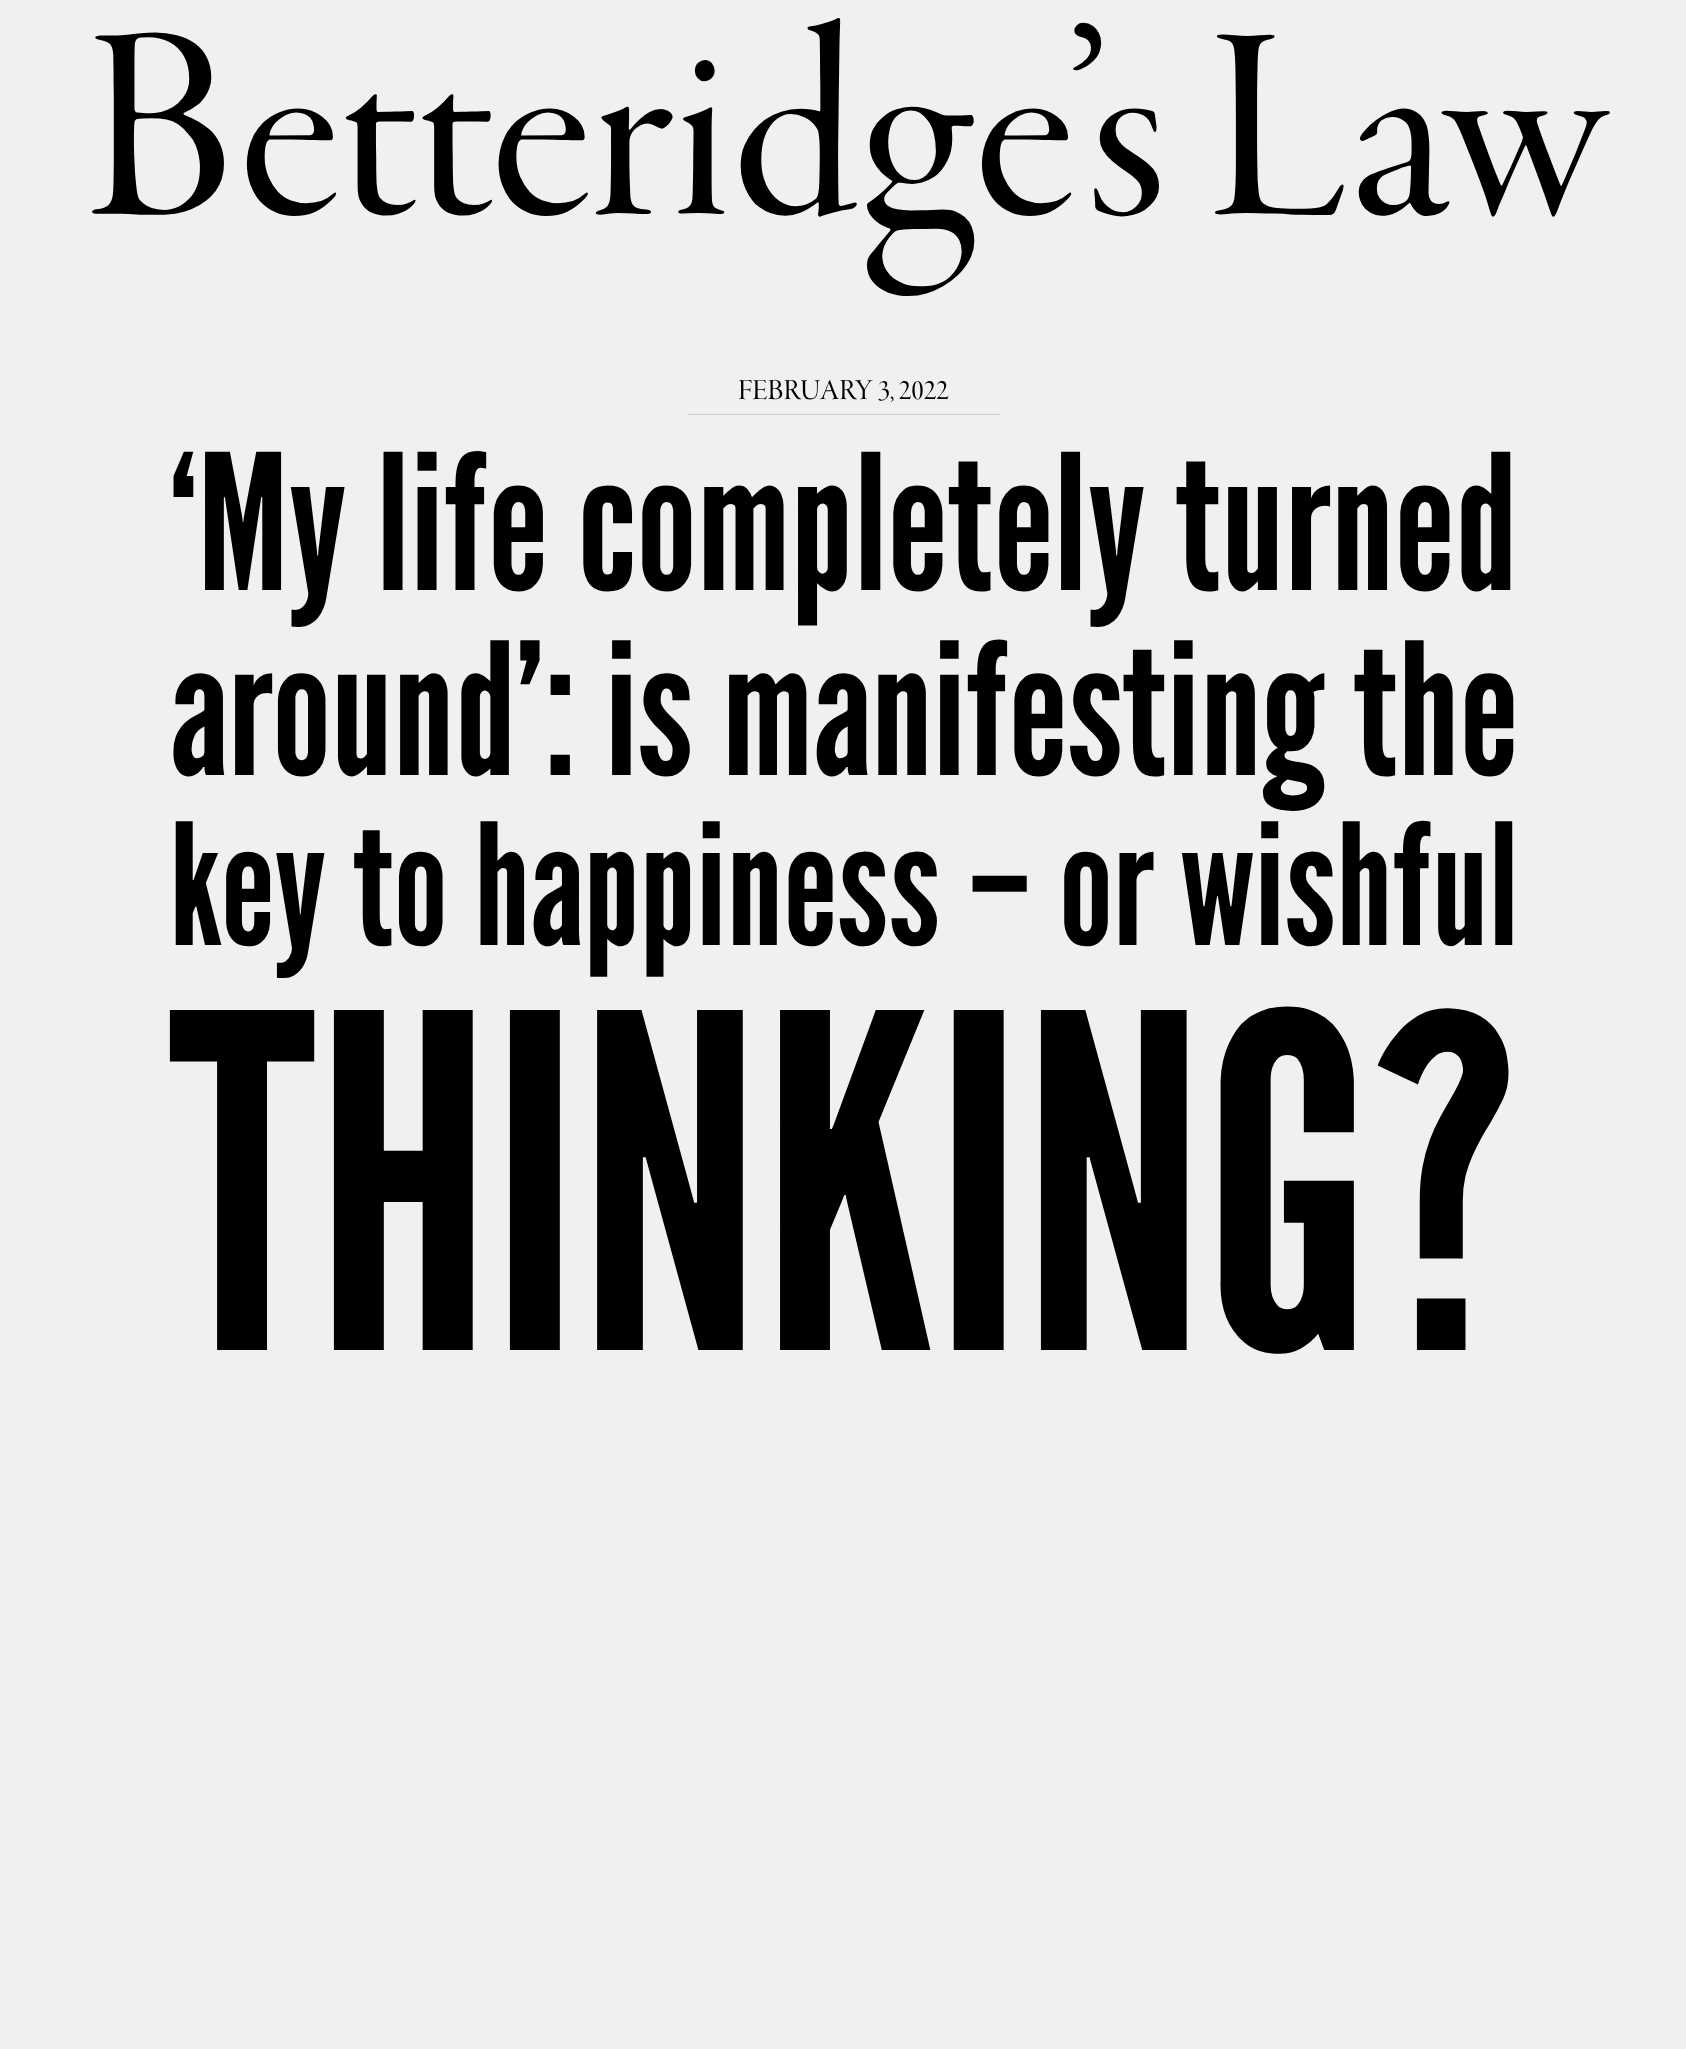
<svg xmlns="http://www.w3.org/2000/svg" width="1686" height="2049">
<style>
.a{font:282.5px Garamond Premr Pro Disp;fill:#000}
.b{font:30px Garamond Premr Pro Disp;fill:#000}
.c{font:188.25px League Gothic;fill:#000}
.d{font:183.5px League Gothic;fill:#000}
.e{font:168.25px League Gothic;fill:#000}
.f{font:462.5px League Gothic;letter-spacing:0.25px;fill:#000}
</style>
<rect width="100%" height="100%" fill="#f0f0f0"/>
<path fill="#ccc" d="M688 414h312v1H688z"/>
<text class="a" x="85" y="213" word-spacing="-2">Betteridge’s Law</text>
<text class="b" x="738" y="399">FEBRUARY 3, 2022</text>
<text class="c" x="169" y="590">‘My life completely turned</text>
<text class="d" x="169" y="775">around’: is manifesting the</text>
<text class="e" x="169" y="945" word-spacing="0.25">key to happiness – or wishful</text>
<text class="f" x="169" y="1350">THINKING?</text>
</svg>
